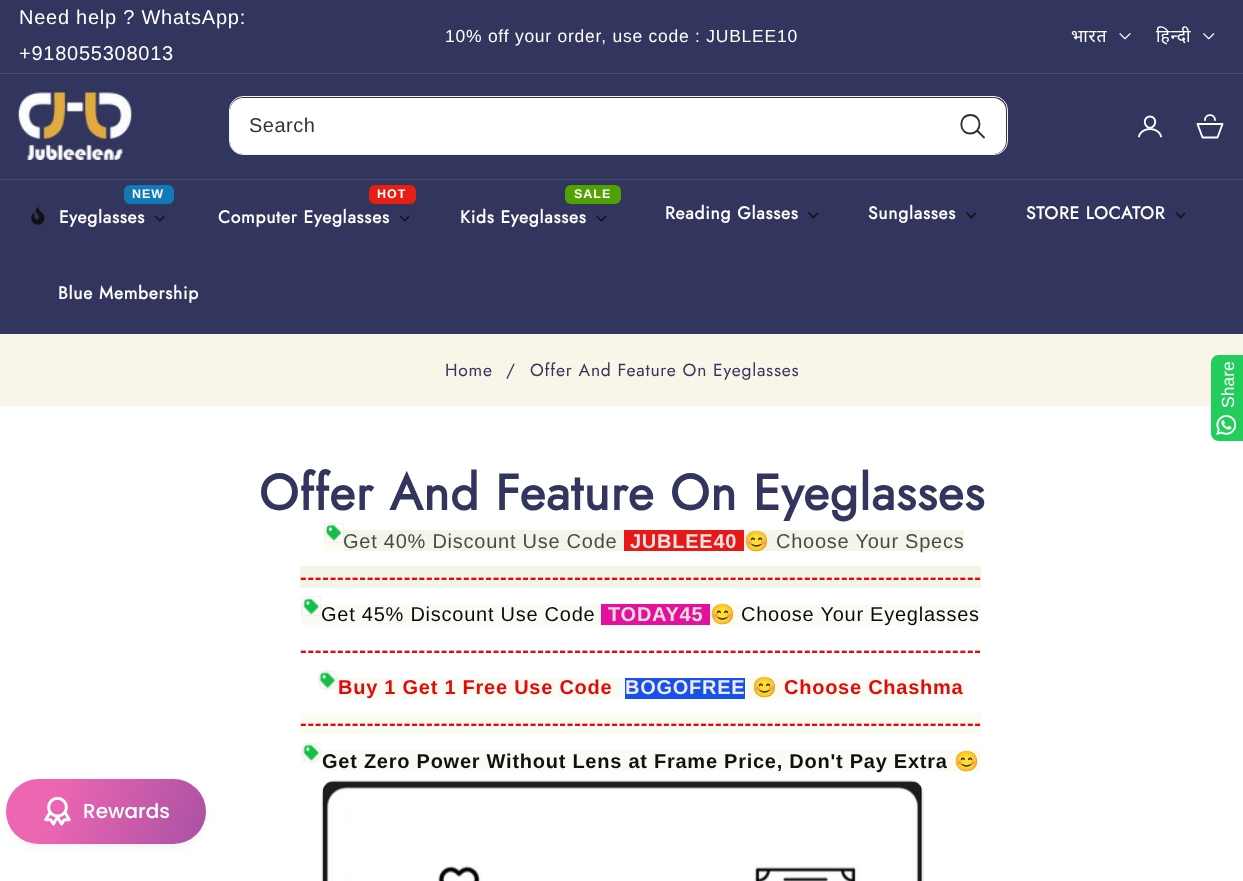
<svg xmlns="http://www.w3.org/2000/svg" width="1243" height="881">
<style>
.a{font:20px Liberation Sans;letter-spacing:0.75px;fill:#fff}
.b{font:17.5px Liberation Sans;letter-spacing:0.75px;fill:#fff}
.c{font:17.5px Noto Sans;letter-spacing:0.75px;fill:#fff}
.d{font:20px Liberation Sans;letter-spacing:0.5px;fill:#333}
.e{font:bold 12.5px Liberation Sans;letter-spacing:1px;fill:#fff}
.f{font:bold 17.5px Jost;letter-spacing:0.75px;fill:#fff}
.g{font:17.5px Jost;letter-spacing:0.75px;fill:#32355d}
.h{font:17.5px Liberation Sans;fill:#fff}
.i{font:bold 50px Jost;letter-spacing:0.75px;fill:#32355d}
.j{font:20px Liberation Sans;letter-spacing:0.75px;fill:#4a4b48}
.k{font:bold 20px Liberation Sans;letter-spacing:0.75px;fill:#ece3e3}
.l{font:20px Noto Color Emoji;letter-spacing:0.75px;fill:#4a4b48}
.m{font:bold 20px Liberation Sans;letter-spacing:0.75px;fill:#e40a0a}
.n{font:20px Noto Color Emoji;letter-spacing:0.75px;fill:#0b0b0b}
.o{font:20px Liberation Sans;letter-spacing:0.75px;fill:#0b0b0b}
.p{font:bold 20px Liberation Sans;letter-spacing:0.75px;fill:#f2e0e0}
.q{font:bold 20px Liberation Sans;letter-spacing:0.75px;fill:#f2e9e9}
.r{font:bold 20px Noto Color Emoji;letter-spacing:0.75px;fill:#e40a0a}
.s{font:bold 20px Liberation Sans;letter-spacing:0.75px;fill:#121010}
.t{font:bold 20px Noto Color Emoji;letter-spacing:0.75px;fill:#57ef07}
.u{font:500 20px Poppins;fill:#fff}
</style>
<defs>
<linearGradient id="g1" gradientUnits="userSpaceOnUse" x1="7.2" y1="776" x2="285" y2="875"><stop offset="0.17" stop-color="#ed66b2"/><stop offset="1" stop-color="#86469c"/></linearGradient>
</defs>
<rect width="100%" height="100%" fill="#fff"/>
<path fill="#32355d" d="M0 0h1243v73H0z"/>
<path fill="#474a6e" d="M0 73h1243v1H0z"/>
<image href="1.png" x="1119" y="33" width="12" height="7"/>
<image href="2.png" x="1203" y="33" width="12" height="7"/>
<path fill="#32355d" d="M0 74h1243v260H0z"/>
<image href="3.png" x="18" y="92" width="114" height="68"/>
<rect fill="#fff" x="230" y="98" width="776" height="56" rx="13"/>
<path fill="none" stroke="#333" stroke-width="1.9" d="M970.5 115c-12.5 0-12 19 0 18.5c12-.5 12-18.5 0-18.5z"/>
<path fill="none" stroke="#333" stroke-width="1.9" stroke-linecap="round" d="M977.5 131l6.5 6.5"/>
<rect fill="none" stroke="#faf5e9" x="229.5" y="96.5" width="778" height="58" rx="13.5"/>
<image href="4.png" x="1137" y="115" width="26" height="23"/>
<path fill="none" stroke="#fff" stroke-width="1.9" stroke-linecap="round" stroke-linejoin="round" d="M1197.5 124h25l-5 13.5h-15zm17.5-4c0-6.5-10-6.5-10 0"/>
<path fill="#474a6e" d="M0 179h1243v1H0z"/>
<rect fill="#127ab8" x="124" y="185" width="50" height="19" rx="6"/>
<image href="5.png" x="31" y="207" width="14" height="18"/>
<path fill="#121212" d="M164 215.5l1 1l-5 5l-1-1z"/>
<path fill="#121212" d="M155.5 215.5l5 5l-1 1l-5-5z"/>
<rect fill="#e51f14" x="369" y="185" width="47" height="19" rx="6"/>
<path fill="#121212" d="M408.5 215.5l1 1l-4.5 5l-1-1z"/>
<path fill="#121212" d="M400.5 215.5l5 5l-1 1l-5-5z"/>
<rect fill="#52a104" x="565" y="185" width="56" height="19" rx="6"/>
<path fill="#121212" d="M605.5 215.5l1 1l-5 5l-1-1z"/>
<path fill="#121212" d="M597 215.5l5 5l-1 1l-5-5z"/>
<path fill="#121212" d="M817.5 212.5l1 1l-5 5l-1-1.5z"/>
<path fill="#121212" d="M809 212l5 5l-1 1.5l-5-5.5z"/>
<path fill="#121212" d="M975.5 212.5l1 1l-5 5l-1-1.5z"/>
<path fill="#121212" d="M967 212l5 5l-1 1.5l-5-5.5z"/>
<path fill="#121212" d="M1184.5 212.5l1 1l-4.5 5l-1-1.5z"/>
<path fill="#121212" d="M1176.5 212l5 5l-1 1.5l-5-5.5z"/>
<path fill="#faf5e9" d="M0 334h1243v72H0z"/>
<path fill="#22cd5b" d="M1219 355h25v86h-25c-4.5 0-8-3.5-8-8v-70c0-4.5 3.5-8 8-8z"/>
<image href="6.png" x="1216" y="415" width="20" height="20"/>
<path fill="#fafcf4" d="M324 530h20v21H324z"/>
<path fill="none" stroke="#1212120d" d="M324.5 523.5h19v19H324.5z"/>
<image href="7.png" x="326" y="524" width="16" height="17"/>
<path fill="#f3f5e8" d="M344 530h280v21H344z"/>
<path fill="#e91818" d="M624 530h120v21H624z"/>
<path fill="#f3f5e8" d="M744 530h220v21H744z"/>
<path fill="#f3f5e8" d="M300 566h681v22H300z"/>
<path fill="#fafcf4" d="M301 604h300v21H301z"/>
<path fill="none" stroke="#1212120d" d="M301.5 596.5h19v19H301.5z"/>
<image href="8.png" x="303" y="598" width="16" height="17"/>
<path fill="#fafcf4" d="M710 604h270v21H710z"/>
<path fill="#e4109e" d="M601 604h109v21H601z"/>
<path fill="#fafcf4" d="M318 670h20v20H318z"/>
<circle fill="none" stroke="#eef0e9" cx="328" cy="680" r="9.5"/>
<image href="9.png" x="319" y="671" width="17" height="18"/>
<path fill="#fafcf4" d="M338 678h287v21H338z"/>
<path fill="#fafcf4" d="M745 678h219v21H745z"/>
<path fill="#1451ed" d="M625 678h120v21H625z"/>
<path fill="#fafcf4" d="M300 713h681v21H300z"/>
<path fill="#fafcf4" d="M301 743h20v20H301z"/>
<circle fill="none" stroke="#eef0e9" cx="311" cy="753" r="9.5"/>
<image href="10.png" x="303" y="744" width="16" height="17"/>
<path fill="#fafcf4" d="M321 750h659v21H321z"/>
<rect fill="none" stroke="#f3f3f3" x="321.5" y="780.5" width="602" height="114" rx="12.5"/>
<image href="11.png" x="322" y="780" width="601" height="101"/>
<rect fill="#44444414" filter="blur(5px)" x="9" y="786" width="195" height="60" rx="30"/>
<rect fill="url(#g1)" x="6" y="779" width="200" height="65" rx="32.5"/>
<image href="12.png" x="44" y="796" width="27" height="30"/>
<text class="a" x="19" y="24">Need help ? WhatsApp:</text>
<text class="a" x="19" y="60">+918055308013</text>
<text class="b" x="445" y="42">10% off your order, use code : JUBLEE10</text>
<text class="c" x="1071" y="42">भारत</text>
<text class="c" x="1156" y="42">हिन्दी</text>
<text class="d" x="249" y="132">Search</text>
<text class="e" x="132" y="198">NEW</text>
<text class="f" x="59" y="223">Eyeglasses</text>
<text class="e" x="377" y="198">HOT</text>
<text class="f" x="218" y="223">Computer Eyeglasses</text>
<text class="e" x="574" y="198">SALE</text>
<text class="f" x="460" y="223">Kids Eyeglasses</text>
<text class="f" x="665" y="219">Reading Glasses</text>
<text class="f" x="868" y="219">Sunglasses</text>
<text class="f" x="1026" y="219">STORE LOCATOR</text>
<text class="f" x="58" y="299">Blue Membership</text>
<text class="g" x="445" y="376">Home</text>
<text class="g" x="506" y="376">/</text>
<text class="g" x="530" y="376">Offer And Feature On Eyeglasses</text>
<text class="h" x="1234" y="408" transform="rotate(-90 1234 408)">Share</text>
<text class="i" x="259" y="510">Offer And Feature On Eyeglasses</text>
<text class="j" x="343" y="548">Get 40% Discount Use Code</text>
<text class="k" x="630" y="548">JUBLEE40</text>
<text class="l" x="744" y="548">😊</text>
<text class="j" x="776" y="548">Choose Your Specs</text>
<text class="m" x="300" y="584">--------------------------------------------------------------------------------------------</text>
<text class="n" x="710" y="621">😊</text>
<text class="o" x="321" y="621">Get 45% Discount Use Code</text>
<text class="p" x="608" y="621">TODAY45</text>
<text class="o" x="741" y="621">Choose Your Eyeglasses</text>
<text class="m" x="300" y="657">--------------------------------------------------------------------------------------------</text>
<text class="m" x="338" y="694">Buy 1 Get 1 Free Use Code</text>
<text class="q" x="625" y="694">BOGOFREE</text>
<text class="r" x="752" y="694">😊</text>
<text class="m" x="784" y="694">Choose Chashma</text>
<text class="m" x="300" y="730">--------------------------------------------------------------------------------------------</text>
<text class="s" x="322" y="768">Get Zero Power Without Lens at Frame Price, Don't Pay Extra</text>
<text class="t" x="954" y="768">😊</text>
<text class="u" x="83" y="818">Rewards</text>
</svg>
